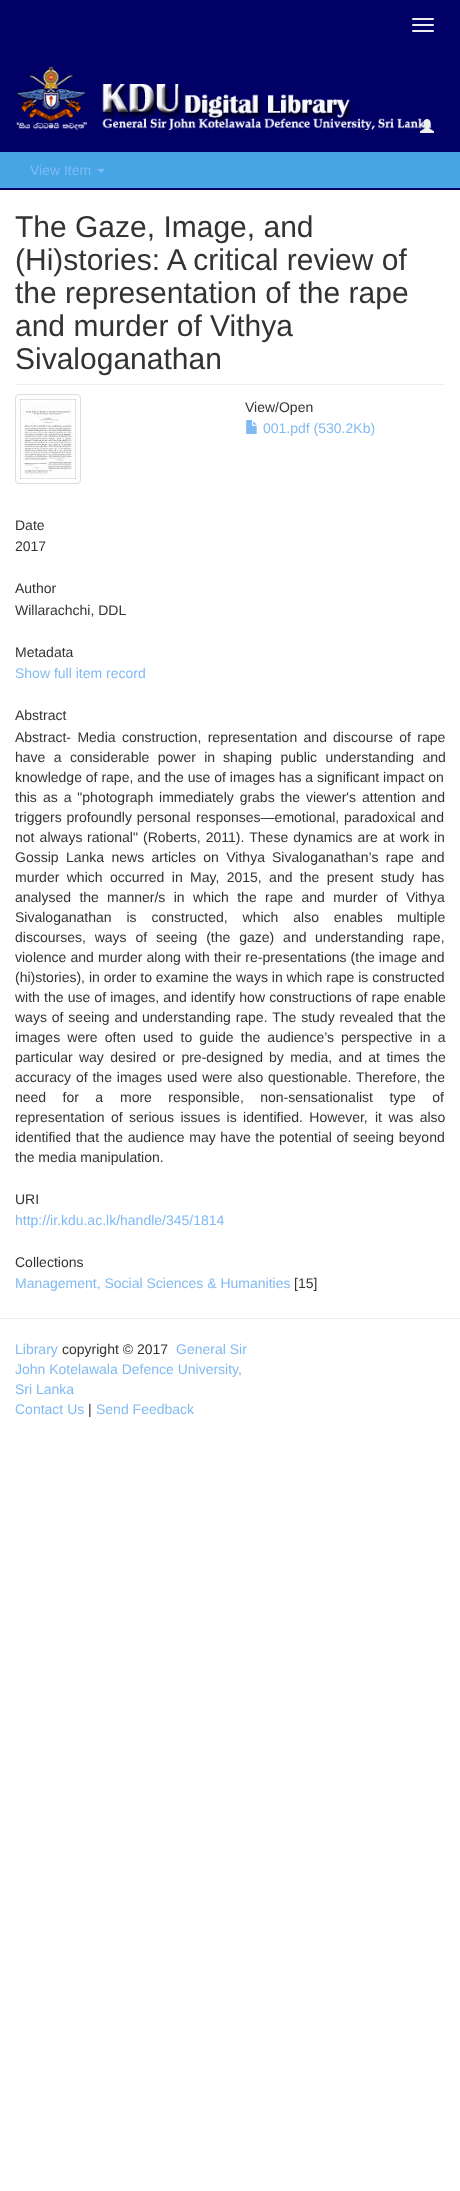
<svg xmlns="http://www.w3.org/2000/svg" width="460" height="2191">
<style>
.a{font:14px Liberation Sans;fill:#81baf3}
.b{font:30px Liberation Sans;fill:#333}
.c{font:14px Liberation Sans;fill:#333}
</style>
<rect width="100%" height="100%" fill="#fff"/>
<path fill="#010066" d="M0 0h460v150H0z"/>
<rect fill="#eee" x="412" y="18" width="22" height="2" rx="1"/>
<rect fill="#eee" x="412" y="24" width="22" height="2" rx="1"/>
<rect fill="#eee" x="412" y="30" width="22" height="2" rx="1"/>
<image href="1.png" x="16" y="66" width="416" height="64"/>
<image href="2.png" x="420" y="119" width="14" height="14"/>
<path fill="#46a5e5" d="M0 152h460v36H0z"/>
<path fill="#006" d="M0 150h460v2H0z"/>
<path fill="#006" d="M0 188h460v2H0z"/>
<path fill="#81baf3" d="M97 169h8l-4 4z"/>
<path fill="#eee" d="M15 384h430v1H15z"/>
<rect fill="none" stroke="#ddd" x="15.5" y="394.5" width="65" height="89" rx="3.5"/>
<image href="3.png" x="20" y="399" width="56" height="80"/>
<image href="4.png" x="246" y="420" width="11" height="14"/>
<path fill="#eee" d="M0 1318h460v1H0z"/>
<text class="a" x="30" y="175">View Item</text>
<text class="b" x="15" y="237">The Gaze, Image, and</text>
<text class="b" x="15" y="270">(Hi)stories: A critical review of</text>
<text class="b" x="15" y="303">the representation of the rape</text>
<text class="b" x="15" y="336">and murder of Vithya</text>
<text class="b" x="15" y="369">Sivaloganathan</text>
<text class="c" x="245" y="412">View/Open</text>
<text class="a" x="263" y="433">001.pdf (530.2Kb)</text>
<text class="c" x="15" y="530">Date</text>
<text class="c" x="15" y="551">2017</text>
<text class="c" x="15" y="593">Author</text>
<text class="c" x="15" y="615">Willarachchi, DDL</text>
<text class="c" x="15" y="657">Metadata</text>
<text class="a" x="15" y="678">Show full item record</text>
<text class="c" x="15" y="720">Abstract</text>
<text class="c" x="15" y="742" word-spacing="2.5">Abstract- Media construction, representation and</text>
<text class="c" x="333" y="742" word-spacing="2.5">discourse of rape</text>
<text class="c" x="15" y="762" word-spacing="4.5">have a considerable power in</text>
<text class="c" x="223" y="762" word-spacing="4.5">shaping public understanding and</text>
<text class="c" x="15" y="782">knowledge of rape, and the use of images has a significant impact on</text>
<text class="c" x="15" y="802">this</text>
<text class="c" x="43" y="802" word-spacing="2">as a "photograph immediately grabs the viewer's</text>
<text class="c" x="362" y="802" word-spacing="2">attention and</text>
<text class="c" x="15" y="822" word-spacing="1">triggers profoundly personal</text>
<text class="c" x="196" y="822" word-spacing="1">responses—emotional, paradoxical and</text>
<text class="c" x="15" y="842" word-spacing="1.25">not always</text>
<text class="c" x="87" y="842" word-spacing="1.25">rational" (Roberts, 2011). These dynamics are at work</text>
<text class="c" x="434" y="842">in</text>
<text class="c" x="15" y="862" word-spacing="3.5">Gossip Lanka news articles on Vithya</text>
<text class="c" x="272" y="862" word-spacing="3.5">Sivaloganathan’s rape and</text>
<text class="c" x="15" y="882" word-spacing="3.5">murder which occurred in</text>
<text class="c" x="190" y="882" word-spacing="3.5">May, 2015, and the present study has</text>
<text class="c" x="15" y="902" word-spacing="4.5">analysed the</text>
<text class="c" x="107" y="902" word-spacing="4.5">manner/s in which the rape and murder of Vithya</text>
<text class="c" x="15" y="922" word-spacing="11">Sivaloganathan is constructed, which also enables</text>
<text class="c" x="397" y="922">multiple</text>
<text class="c" x="15" y="942" word-spacing="5">discourses, ways of seeing (the gaze) and</text>
<text class="c" x="315" y="942" word-spacing="5">understanding rape,</text>
<text class="c" x="15" y="962" word-spacing="0.25">violence and murder along with their re-presentations (the image and</text>
<text class="c" x="15" y="982">(hi)stories), in order to examine the ways in which rape is constructed</text>
<text class="c" x="15" y="1002" word-spacing="0.25">with the use of images, and identify how constructions of rape enable</text>
<text class="c" x="15" y="1022" word-spacing="1">ways of seeing and</text>
<text class="c" x="142" y="1022" word-spacing="1">understanding rape. The study revealed that the</text>
<text class="c" x="15" y="1042" word-spacing="3.25">images were often used to guide the audience’s</text>
<text class="c" x="341" y="1042" word-spacing="3.25">perspective in a</text>
<text class="c" x="15" y="1062" word-spacing="2.5">particular way desired or pre-designed</text>
<text class="c" x="269" y="1062" word-spacing="2.5">by media, and at times the</text>
<text class="c" x="15" y="1082" word-spacing="1">accuracy of the images</text>
<text class="c" x="167" y="1082" word-spacing="1">used were also questionable. Therefore, the</text>
<text class="c" x="15" y="1102" word-spacing="12.5">need for a</text>
<text class="c" x="120" y="1102" word-spacing="12.5">more responsible, non-sensationalist type of</text>
<text class="c" x="15" y="1122" word-spacing="2.5">representation of serious issues is identified. However,</text>
<text class="c" x="375" y="1122" word-spacing="2.5">it was also</text>
<text class="c" x="15" y="1142" word-spacing="0.75">identified that the audience may have the</text>
<text class="c" x="279" y="1142" word-spacing="0.75">potential of seeing beyond</text>
<text class="c" x="15" y="1162">the media manipulation.</text>
<text class="c" x="15" y="1204">URI</text>
<text class="a" x="15" y="1225">http://ir.kdu.ac.lk/handle/345/1814</text>
<text class="c" x="15" y="1267">Collections</text>
<text class="a" x="15" y="1288">Management, Social Sciences &amp; Humanities</text>
<text class="c" x="294" y="1288">[15]</text>
<text class="a" x="15" y="1354">Library</text>
<text class="c" x="62" y="1354">copyright © 2017</text>
<text class="a" x="176" y="1354">General Sir</text>
<text class="a" x="15" y="1374">John Kotelawala Defence University,</text>
<text class="a" x="15" y="1394">Sri Lanka</text>
<text class="a" x="15" y="1414">Contact Us</text>
<text class="c" x="88" y="1414">|</text>
<text class="a" x="96" y="1414">Send Feedback</text>
</svg>
